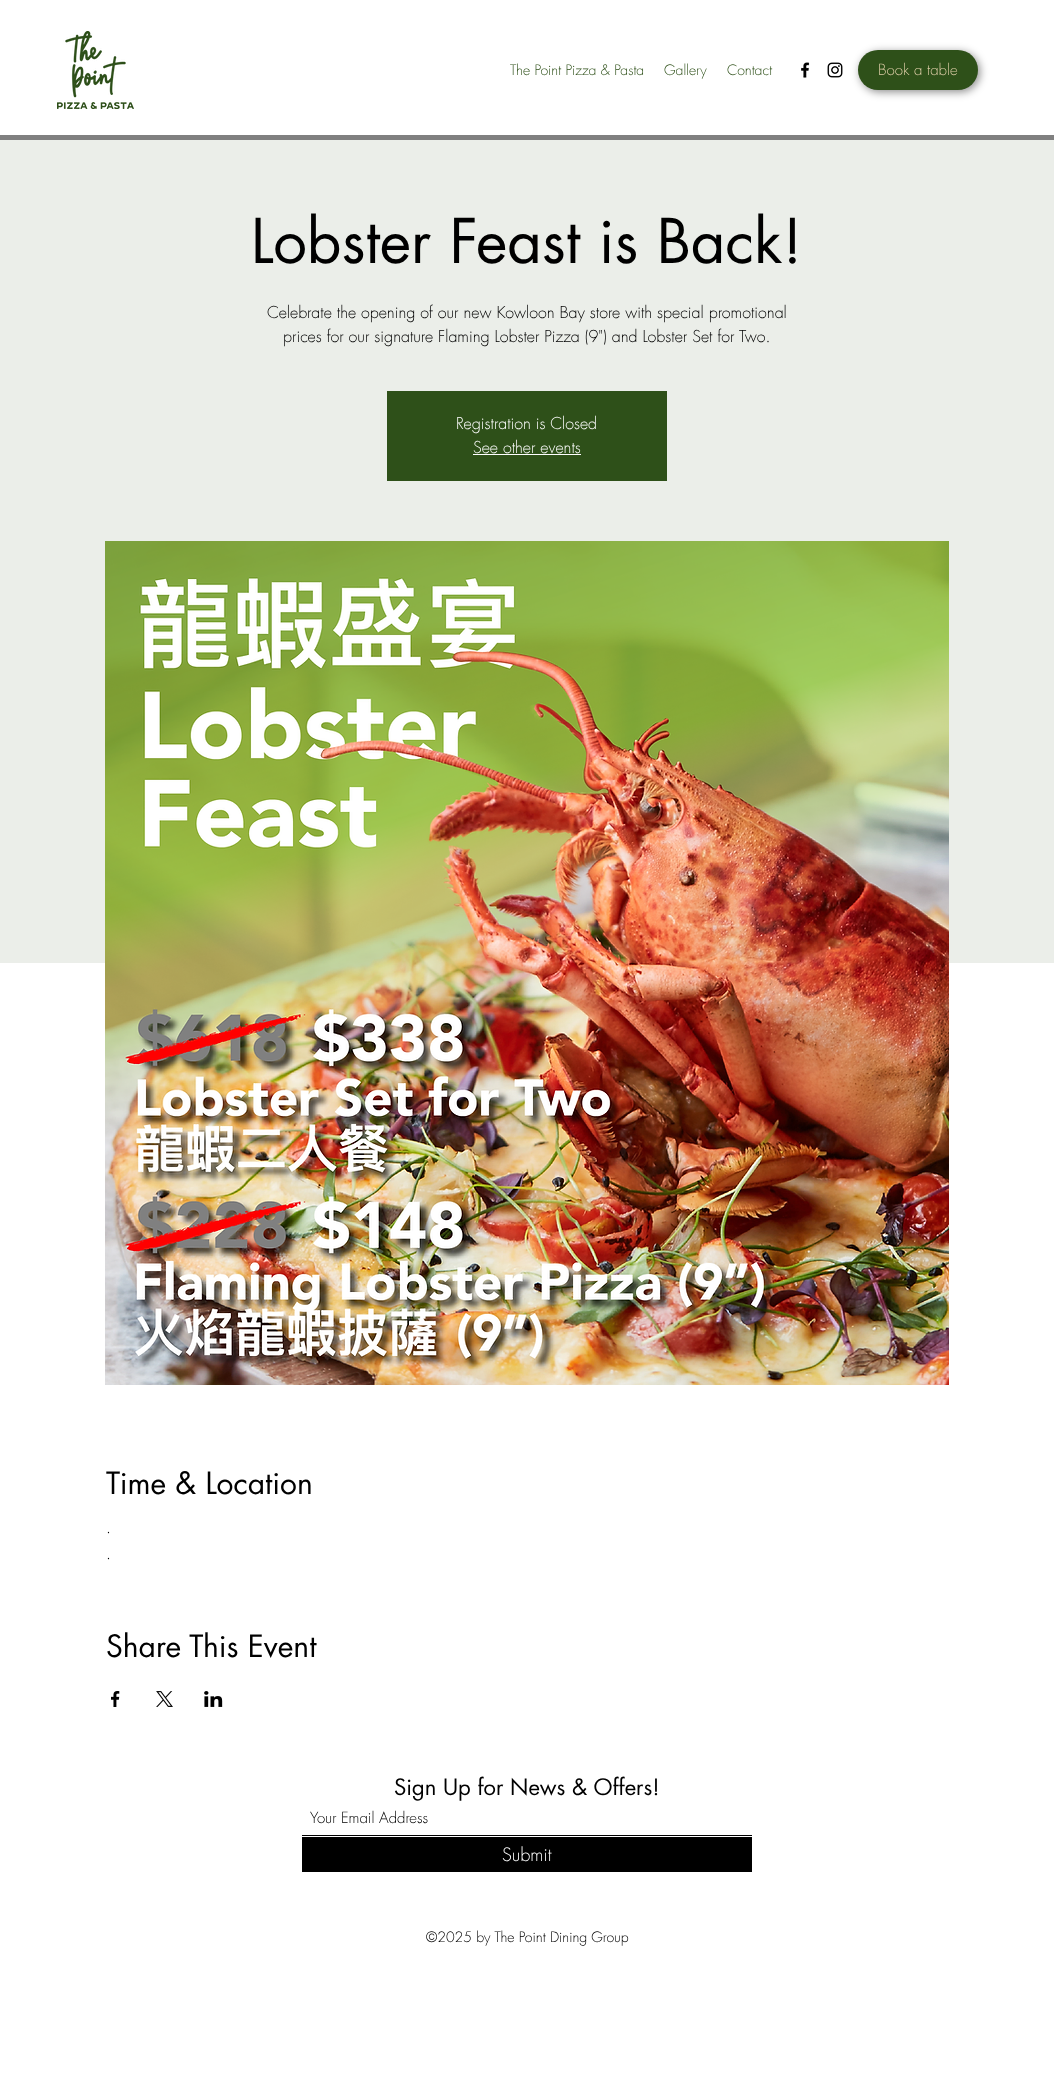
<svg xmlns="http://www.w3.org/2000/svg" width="1054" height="2076">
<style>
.a{font:300 14px futura;fill:#2e5019}
.b{font:300 15px futura;fill:#dccca6}
.c{font:60px futura;fill:#000}
.d{font:300 16px futura;fill:#000}
.e{font:300 16px futura;fill:#fff}
.f{font:30px futura;fill:#000}
.g{font:22px futura;fill:#000}
.h{font:300 15px futura;fill:#000}
.i{font:300 18px futura;fill:#fff}
.j{font:300 14px futura;fill:#000}
</style>
<rect width="100%" height="100%" fill="#fff"/>
<image href="1.png" x="57" y="31" width="77" height="78"/>
<image href="2.png" x="801" y="62" width="9" height="16"/>
<image href="3.png" x="827" y="62" width="16" height="16"/>
<rect fill="#00000073" filter="blur(4px)" x="860" y="52" width="120" height="40" rx="20"/>
<rect fill="#2e5019" x="858" y="50" width="120" height="40" rx="20"/>
<path fill="#808080" d="M0 135h1054v5H0z"/>
<path fill="#ebeee9" d="M0 140h1054v823H0z"/>
<path fill="#2e5019" d="M387 391h280v90H387z"/>
<path fill="#fff" d="M473 454h108v1H473z"/>
<image href="4.png" x="105" y="541" width="844" height="844"/>
<image href="5.png" x="111" y="1691" width="9" height="16"/>
<image href="6.png" x="156" y="1691" width="17" height="16"/>
<image href="7.png" x="204" y="1691" width="19" height="16"/>
<path fill="#000" d="M302 1835h450v1H302z"/>
<path fill="#000" d="M302 1837h450v35H302z"/>
<text class="a" x="510" y="75">The Point Pizza &amp; Pasta</text>
<text class="a" x="664" y="75">Gallery</text>
<text class="a" x="727" y="75">Contact</text>
<text class="b" x="878" y="75">Book a table</text>
<text class="c" x="251" y="263">Lobster Feast is Back!</text>
<text class="d" x="267" y="318">Celebrate the opening of our new Kowloon Bay store with special promotional</text>
<text class="d" x="283" y="342">prices for our signature Flaming Lobster Pizza (9") and Lobster Set for Two.</text>
<text class="e" x="456" y="429">Registration is Closed</text>
<text class="e" x="473" y="453">See other events</text>
<text class="f" x="106" y="1494">Time &amp; Location</text>
<text class="d" x="106" y="1533">.</text>
<text class="d" x="106" y="1559">.</text>
<text class="f" x="106" y="1657">Share This Event</text>
<text class="g" x="394" y="1795">Sign Up for News &amp; Offers!</text>
<text class="h" x="310" y="1823">Your Email Address</text>
<text class="i" x="502" y="1861">Submit</text>
<text class="j" x="426" y="1942">©2025 by The Point Dining Group</text>
</svg>
